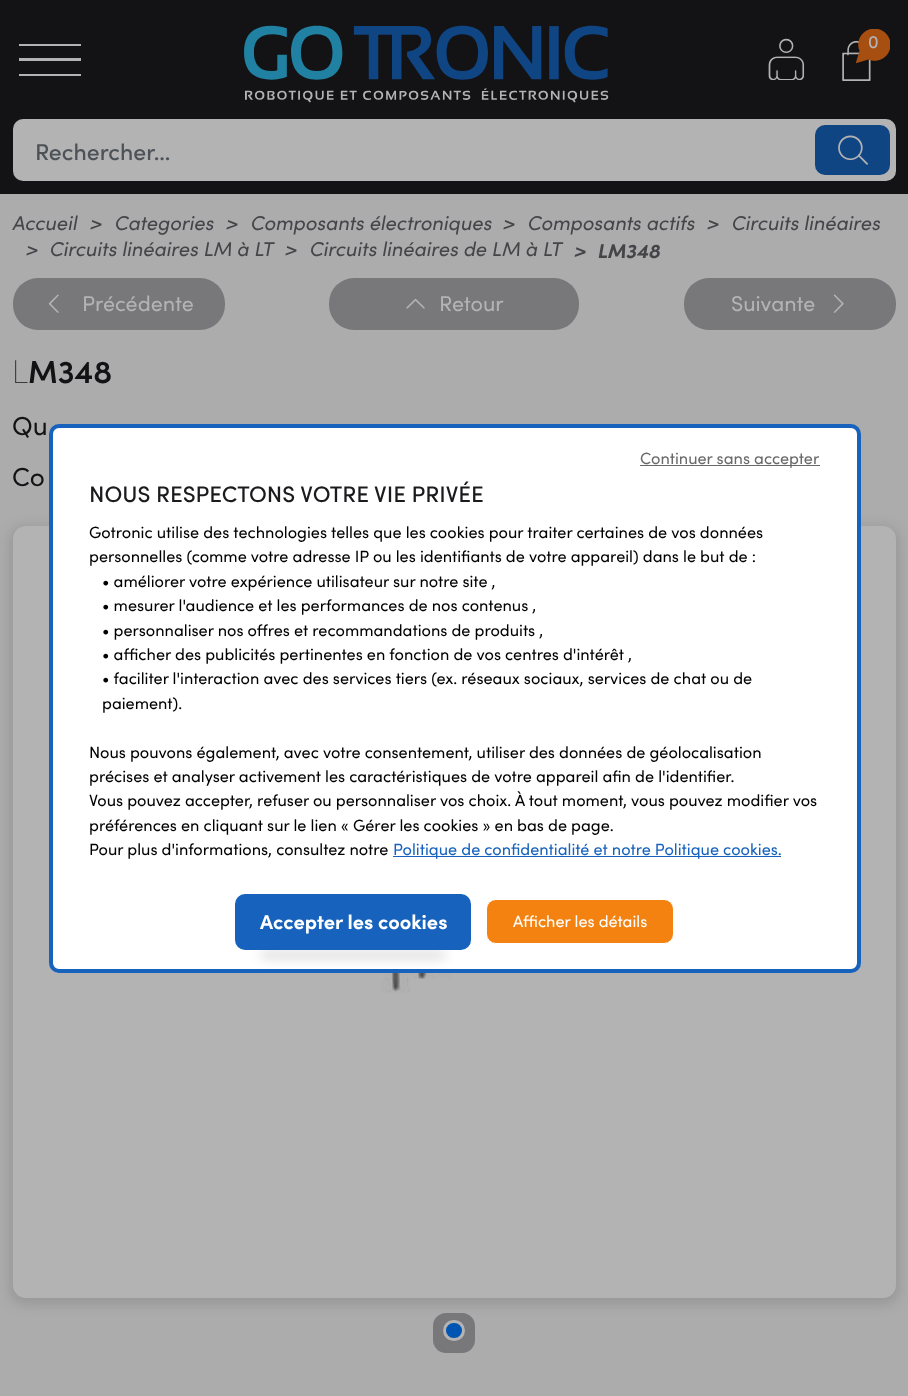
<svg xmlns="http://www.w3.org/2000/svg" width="908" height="1396">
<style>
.a{font:500 18px Sofia;fill:#b3b3b3}
.b{font:500 23px Sofia;fill:#4c5258}
.c{font:italic 20px Sofia;fill:#454549}
.d{font:italic bold 20px Sofia;fill:#454549}
.e{font:21.5px Sofia;fill:#b3b3b3}
.f{font:100 32px Noto Sans;fill:#131315}
.g{font:600 32px Sofia;fill:#131315}
.h{font:26px Sofia;fill:#131315}
.i{font:16.25px Sofia;fill:#696969}
.j{font:500 22.5px Sofia;fill:#1b1b1e}
.k{font:16.25px Sofia;fill:#000}
.l{font:16.25px Sofia;fill:#1762bc}
.m{font:bold 20px Sofia;fill:#fff}
.n{font:16.25px Sofia;fill:#fff}
</style>
<rect width="100%" height="100%" fill="#acacad"/>
<path fill="#131315" d="M0 0h908v194H0z"/>
<image href="1.png" x="244" y="25" width="365" height="78"/>
<image href="2.png" x="768" y="38" width="37" height="42"/>
<image href="3.png" x="842" y="40" width="29" height="41"/>
<image href="4.png" x="856" y="29" width="34" height="35"/>
<path fill="#b3b3b3" d="M19 44h62v2H19z"/>
<path fill="#b3b3b3" d="M19 58h62v3H19z"/>
<path fill="#b3b3b3" d="M19 74h62v2H19z"/>
<rect fill="#b3b3b3" x="13" y="119" width="883" height="62" rx="10"/>
<rect fill="#104584" x="815" y="125" width="75" height="50" rx="10"/>
<image href="5.png" x="838" y="135" width="30" height="30"/>
<rect fill="#78787b" x="13" y="278" width="212" height="52" rx="25"/>
<image href="6.png" x="48" y="294" width="11" height="19"/>
<rect fill="#78787b" x="329" y="278" width="250" height="52" rx="25"/>
<image href="7.png" x="406" y="298" width="19" height="11"/>
<rect fill="#78787b" x="684" y="278" width="212" height="52" rx="25"/>
<image href="8.png" x="833" y="294" width="11" height="19"/>
<rect fill="#6d6d6d4f" filter="blur(6px)" x="9" y="526" width="891" height="779" rx="16"/>
<rect fill="#b3b3b3" x="13" y="526" width="883" height="772" rx="13"/>
<image href="9.png" x="314" y="973" width="261" height="20"/>
<rect fill="#78787b" x="433" y="1313" width="42" height="40" rx="13"/>
<rect fill="#0055b3" stroke="#b3b3b3" stroke-width="3" x="444.5" y="1321.5" width="19" height="18" rx="9"/>
<rect fill="#fff" stroke="#1762bc" stroke-width="4" x="51" y="426" width="808" height="545" rx="8"/>
<path fill="#696969" d="M640 465h180v1H640z"/>
<path fill="#1762bc" d="M393 856h388v1H393z"/>
<path fill="#00000047" filter="blur(6px)" d="M261 953h184v4H261z"/>
<rect fill="#1762bc" x="235" y="894" width="236" height="56" rx="10"/>
<rect fill="#f48211" stroke="#fff" x="486.5" y="899.5" width="187" height="44" rx="9.5"/>
<text class="a" x="868" y="48">0</text>
<text class="b" x="35" y="160">Rechercher…</text>
<text class="c" x="12" y="230">Accueil</text>
<text class="c" x="89" y="230">&gt;</text>
<text class="c" x="114" y="230">Categories</text>
<text class="c" x="225" y="230">&gt;</text>
<text class="c" x="250" y="230">Composants électroniques</text>
<text class="c" x="502" y="230">&gt;</text>
<text class="c" x="527" y="230">Composants actifs</text>
<text class="c" x="706" y="230">&gt;</text>
<text class="c" x="731" y="230">Circuits linéaires</text>
<text class="c" x="25" y="256">&gt;</text>
<text class="c" x="49" y="256">Circuits linéaires LM à LT</text>
<text class="c" x="284" y="256">&gt;</text>
<text class="c" x="309" y="256">Circuits linéaires de LM à LT</text>
<text class="d" x="573" y="258">&gt;</text>
<text class="d" x="597" y="258">LM348</text>
<text class="e" x="82" y="311">Précédente</text>
<text class="e" x="439" y="311">Retour</text>
<text class="e" x="731" y="311">Suivante</text>
<text class="f" x="12" y="383">L</text>
<text class="g" x="28" y="383">M348</text>
<text class="h" x="12" y="435">Qu</text>
<text class="h" x="12" y="486">Co</text>
<text class="i" x="640" y="464">Continuer sans accepter</text>
<text class="j" x="89" y="502">NOUS RESPECTONS VOTRE VIE PRIVÉE</text>
<text class="k" x="89" y="538">Gotronic utilise des technologies telles que les cookies pour traiter certaines de vos données</text>
<text class="k" x="89" y="562">personnelles (comme votre adresse IP ou les identifiants de votre appareil) dans le but de :</text>
<text class="k" x="102" y="587">• améliorer votre expérience utilisateur sur notre site ,</text>
<text class="k" x="102" y="611">• mesurer l'audience et les performances de nos contenus ,</text>
<text class="k" x="102" y="636">• personnaliser nos offres et recommandations de produits ,</text>
<text class="k" x="102" y="660">• afficher des publicités pertinentes en fonction de vos centres d'intérêt ,</text>
<text class="k" x="102" y="684">• faciliter l'interaction avec des services tiers (ex. réseaux sociaux, services de chat ou de</text>
<text class="k" x="102" y="709">paiement).</text>
<text class="k" x="89" y="758">Nous pouvons également, avec votre consentement, utiliser des données de géolocalisation</text>
<text class="k" x="89" y="782">précises et analyser activement les caractéristiques de votre appareil afin de l'identifier.</text>
<text class="k" x="89" y="806">Vous pouvez accepter, refuser ou personnaliser vos choix. À tout moment, vous pouvez modifier vos</text>
<text class="k" x="89" y="831">préférences en cliquant sur le lien « Gérer les cookies » en bas de page.</text>
<text class="k" x="89" y="855">Pour plus d'informations, consultez notre</text>
<text class="l" x="393" y="855">Politique de confidentialité et notre Politique cookies.</text>
<text class="m" x="260" y="929">Accepter les cookies</text>
<text class="n" x="513" y="927">Afficher les détails</text>
</svg>
